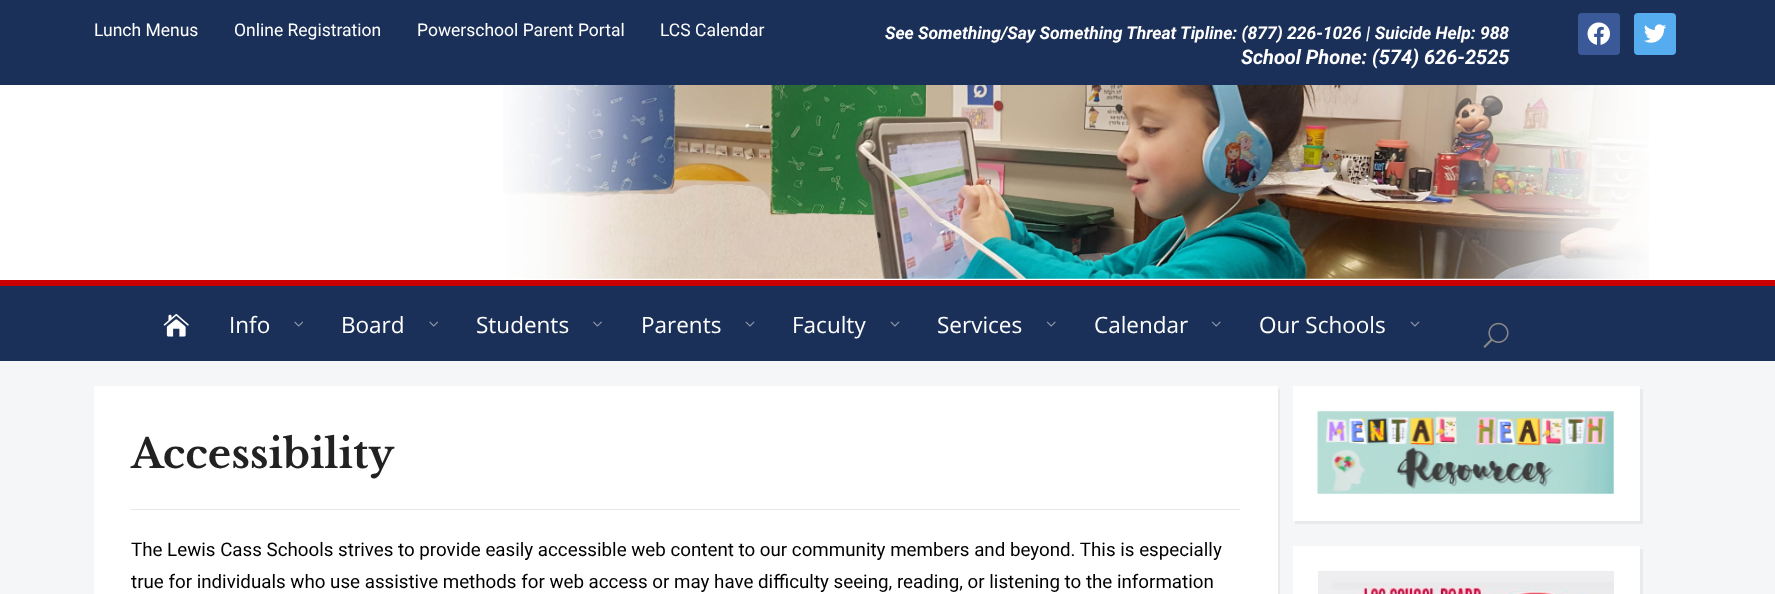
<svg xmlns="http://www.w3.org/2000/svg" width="1775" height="594">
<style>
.a{font:17.5px Roboto;fill:#fff}
.b{font:italic bold 17.5px Roboto;fill:#fff}
.c{font:italic bold 20px Roboto;fill:#fff}
.d{font:22.5px Open Sans;fill:#fff}
.e{font:bold 40px Libre Baskerville;fill:#222}
.f{font:18.75px Roboto;fill:#000}
</style>
<rect width="100%" height="100%" fill="#f4f6f8"/>
<path fill="#fff" d="M0 85h1775v195H0z"/>
<path fill="#1b3058" d="M0 0h1775v85H0z"/>
<rect fill="#3b5998" x="1578" y="13" width="42" height="42" rx="4"/>
<image href="1.png" x="1587" y="22" width="23" height="23"/>
<rect fill="#55acee" x="1634" y="13" width="42" height="42" rx="4"/>
<image href="2.png" x="1644" y="24" width="23" height="19"/>
<image href="3.png" x="503" y="85" width="1146" height="194"/>
<path fill="#1b3058" d="M0 286h1775v75H0z"/>
<path fill="#c90000" d="M0 280h1775v6H0z"/>
<image href="4.png" x="163" y="314" width="26" height="23"/>
<image href="5.png" x="294" y="321" width="9" height="6"/>
<image href="5.png" x="429" y="321" width="9" height="6"/>
<image href="6.png" x="593" y="321" width="9" height="6"/>
<image href="7.png" x="745" y="321" width="10" height="6"/>
<image href="7.png" x="890" y="321" width="10" height="6"/>
<image href="8.png" x="1046" y="321" width="10" height="6"/>
<image href="8.png" x="1211" y="321" width="10" height="6"/>
<image href="7.png" x="1410" y="321" width="10" height="6"/>
<image href="9.png" x="1483" y="322" width="26" height="26"/>
<path fill="#e8eaec" d="M96 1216v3h1184v-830h-2v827z"/>
<path fill="#fff" d="M94 386h1184v208H94z"/>
<path fill="#e7e7e7" d="M131 509h1109v1H131z"/>
<path fill="#e8eaec" d="M1295 521v3h348v-135h-3v132z"/>
<path fill="#fff" d="M1293 386h347v135H1293z"/>
<image href="10.png" x="1317" y="411" width="297" height="83"/>
<path fill="#e8eaec" d="M1295 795v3h348v-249h-3v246z"/>
<path fill="#fff" d="M1293 546h347v48H1293z"/>
<image href="11.png" x="1318" y="571" width="296" height="23"/>
<text class="a" x="94" y="36">Lunch Menus</text>
<text class="a" x="234" y="36">Online Registration</text>
<text class="a" x="417" y="36">Powerschool Parent Portal</text>
<text class="a" x="660" y="36">LCS Calendar</text>
<text class="b" x="885" y="39">See Something/Say Something Threat Tipline: (877) 226-1026 | Suicide Help: 988</text>
<text class="c" x="1241" y="64">School Phone: (574) 626-2525</text>
<text class="d" x="229" y="333">Info</text>
<text class="d" x="341" y="333">Board</text>
<text class="d" x="476" y="333">Students</text>
<text class="d" x="641" y="333">Parents</text>
<text class="d" x="792" y="333">Faculty</text>
<text class="d" x="937" y="333">Services</text>
<text class="d" x="1094" y="333">Calendar</text>
<text class="d" x="1259" y="333">Our Schools</text>
<text class="e" x="131" y="468">Accessibility</text>
<text class="f" x="131" y="556">The Lewis Cass Schools strives to provide easily accessible web content to our community members and beyond. This is especially</text>
<text class="f" x="131" y="588">true for individuals who use assistive methods for web access or may have difficulty seeing, reading, or listening to the information</text>
</svg>
